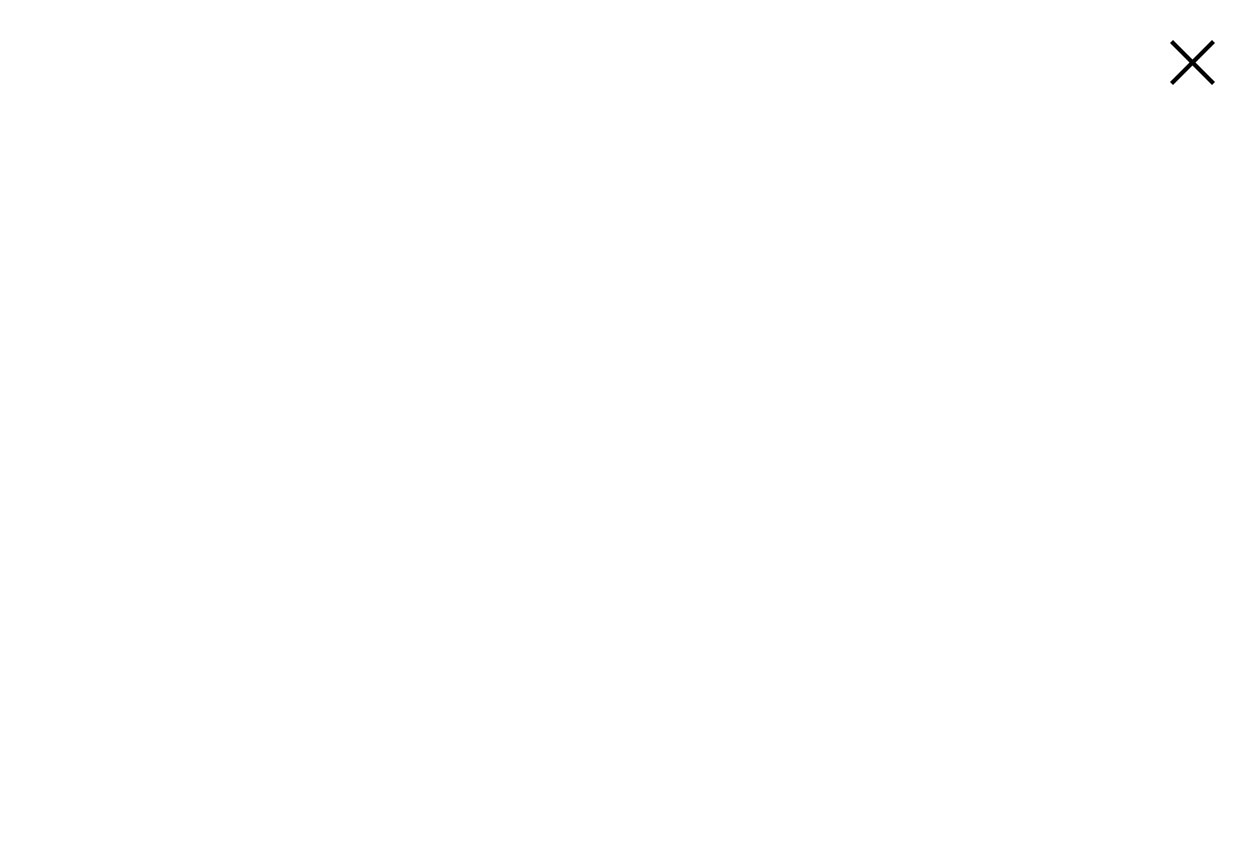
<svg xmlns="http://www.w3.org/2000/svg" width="1255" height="847">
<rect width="100%" height="100%" fill="#fff"/>
<path fill="#000" fill-rule="evenodd" d="M1170 43l3-3l42 42l-3 3z"/>
<path fill="#000" fill-rule="evenodd" d="M1212 40l3 3l-42 42l-3-3z"/>
</svg>
